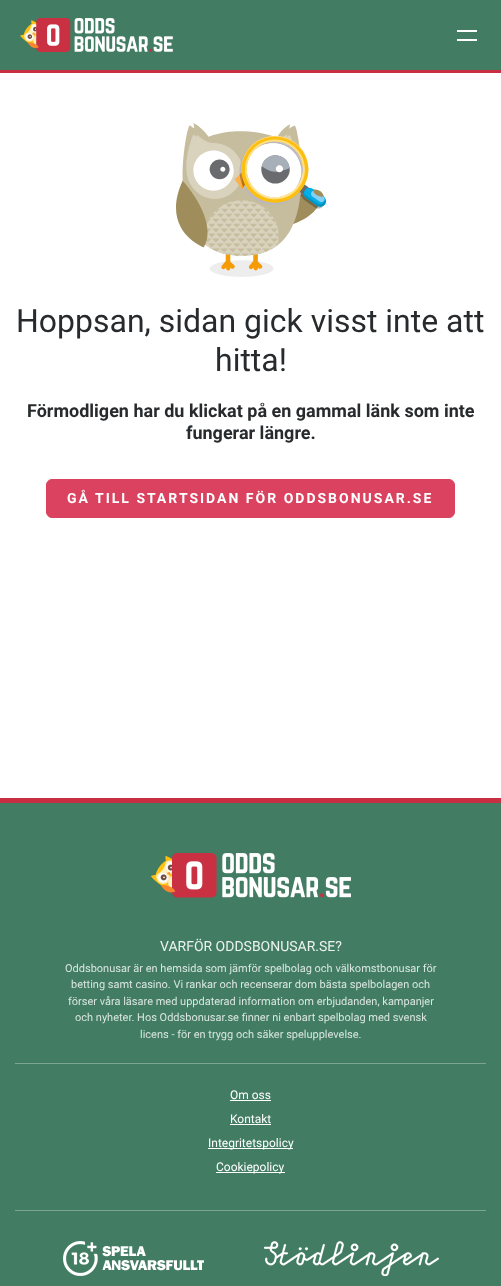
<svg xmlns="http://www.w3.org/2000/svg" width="501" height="1286">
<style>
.a{font:32px Roboto;fill:#282b2d}
.b{font:bold 18px Roboto;fill:#282b2d}
.c{font:bold 14px Roboto;letter-spacing:2px;fill:#fff}
.d{font:14px Roboto;fill:#ecf2ef}
.e{font:11px Roboto;fill:#d9e5e0}
.f{font:12px Roboto;fill:#fff}
</style>
<rect width="100%" height="100%" fill="#fff"/>
<path fill="#427d63" d="M0 0h501v70H0z"/>
<path fill="#c92f42" d="M0 70h501v3H0z"/>
<image href="1.png" x="20" y="18" width="153" height="34"/>
<path fill="#fff" d="M457 30h20v2H457z"/>
<path fill="#fff" d="M457 39h20v2H457z"/>
<image href="2.png" x="176" y="123" width="150" height="154"/>
<rect fill="#da425f" stroke="#da425f" x="46.5" y="479.5" width="408" height="38" rx="5.5"/>
<path fill="#427d63" d="M0 803h501v483H0z"/>
<path fill="#c92f42" d="M0 798h501v5H0z"/>
<path fill="#7ba492" d="M15 1210h471v1H15z"/>
<image href="3.png" x="151" y="853" width="200" height="45"/>
<path fill="#7ba492" d="M15 1063h471v1H15z"/>
<path fill="#fff" d="M230 1100h41v1H230z"/>
<path fill="#fff" d="M230 1124h41v1H230z"/>
<path fill="#fff" d="M208 1148h85v1H208z"/>
<path fill="#fff" d="M216 1172h69v1H216z"/>
<image href="4.png" x="63" y="1241" width="141" height="35"/>
<image href="5.png" x="264" y="1241" width="175" height="35"/>
<text class="a" x="16" y="332">Hoppsan, sidan gick visst inte att</text>
<text class="a" x="215" y="371">hitta!</text>
<text class="b" x="27" y="417">Förmodligen har du klickat på en gammal länk som inte</text>
<text class="b" x="186" y="439">fungerar längre.</text>
<text class="c" x="67" y="503">GÅ TILL STARTSIDAN FÖR ODDSBONUSAR.SE</text>
<text class="d" x="160" y="951">VARFÖR ODDSBONUSAR.SE?</text>
<text class="e" x="65" y="972">Oddsbonusar är en hemsida som jämför spelbolag och välkomstbonusar för</text>
<text class="e" x="71" y="988">betting samt casino. Vi rankar och recenserar dom bästa spelbolagen och</text>
<text class="e" x="68" y="1005">förser våra läsare med uppdaterad information om erbjudanden, kampanjer</text>
<text class="e" x="75" y="1021">och nyheter. Hos Oddsbonusar.se finner ni enbart spelbolag med svensk</text>
<text class="e" x="140" y="1038">licens - för en trygg och säker spelupplevelse.</text>
<text class="f" x="230" y="1099">Om oss</text>
<text class="f" x="230" y="1123">Kontakt</text>
<text class="f" x="208" y="1147">Integritetspolicy</text>
<text class="f" x="216" y="1171">Cookiepolicy</text>
</svg>
